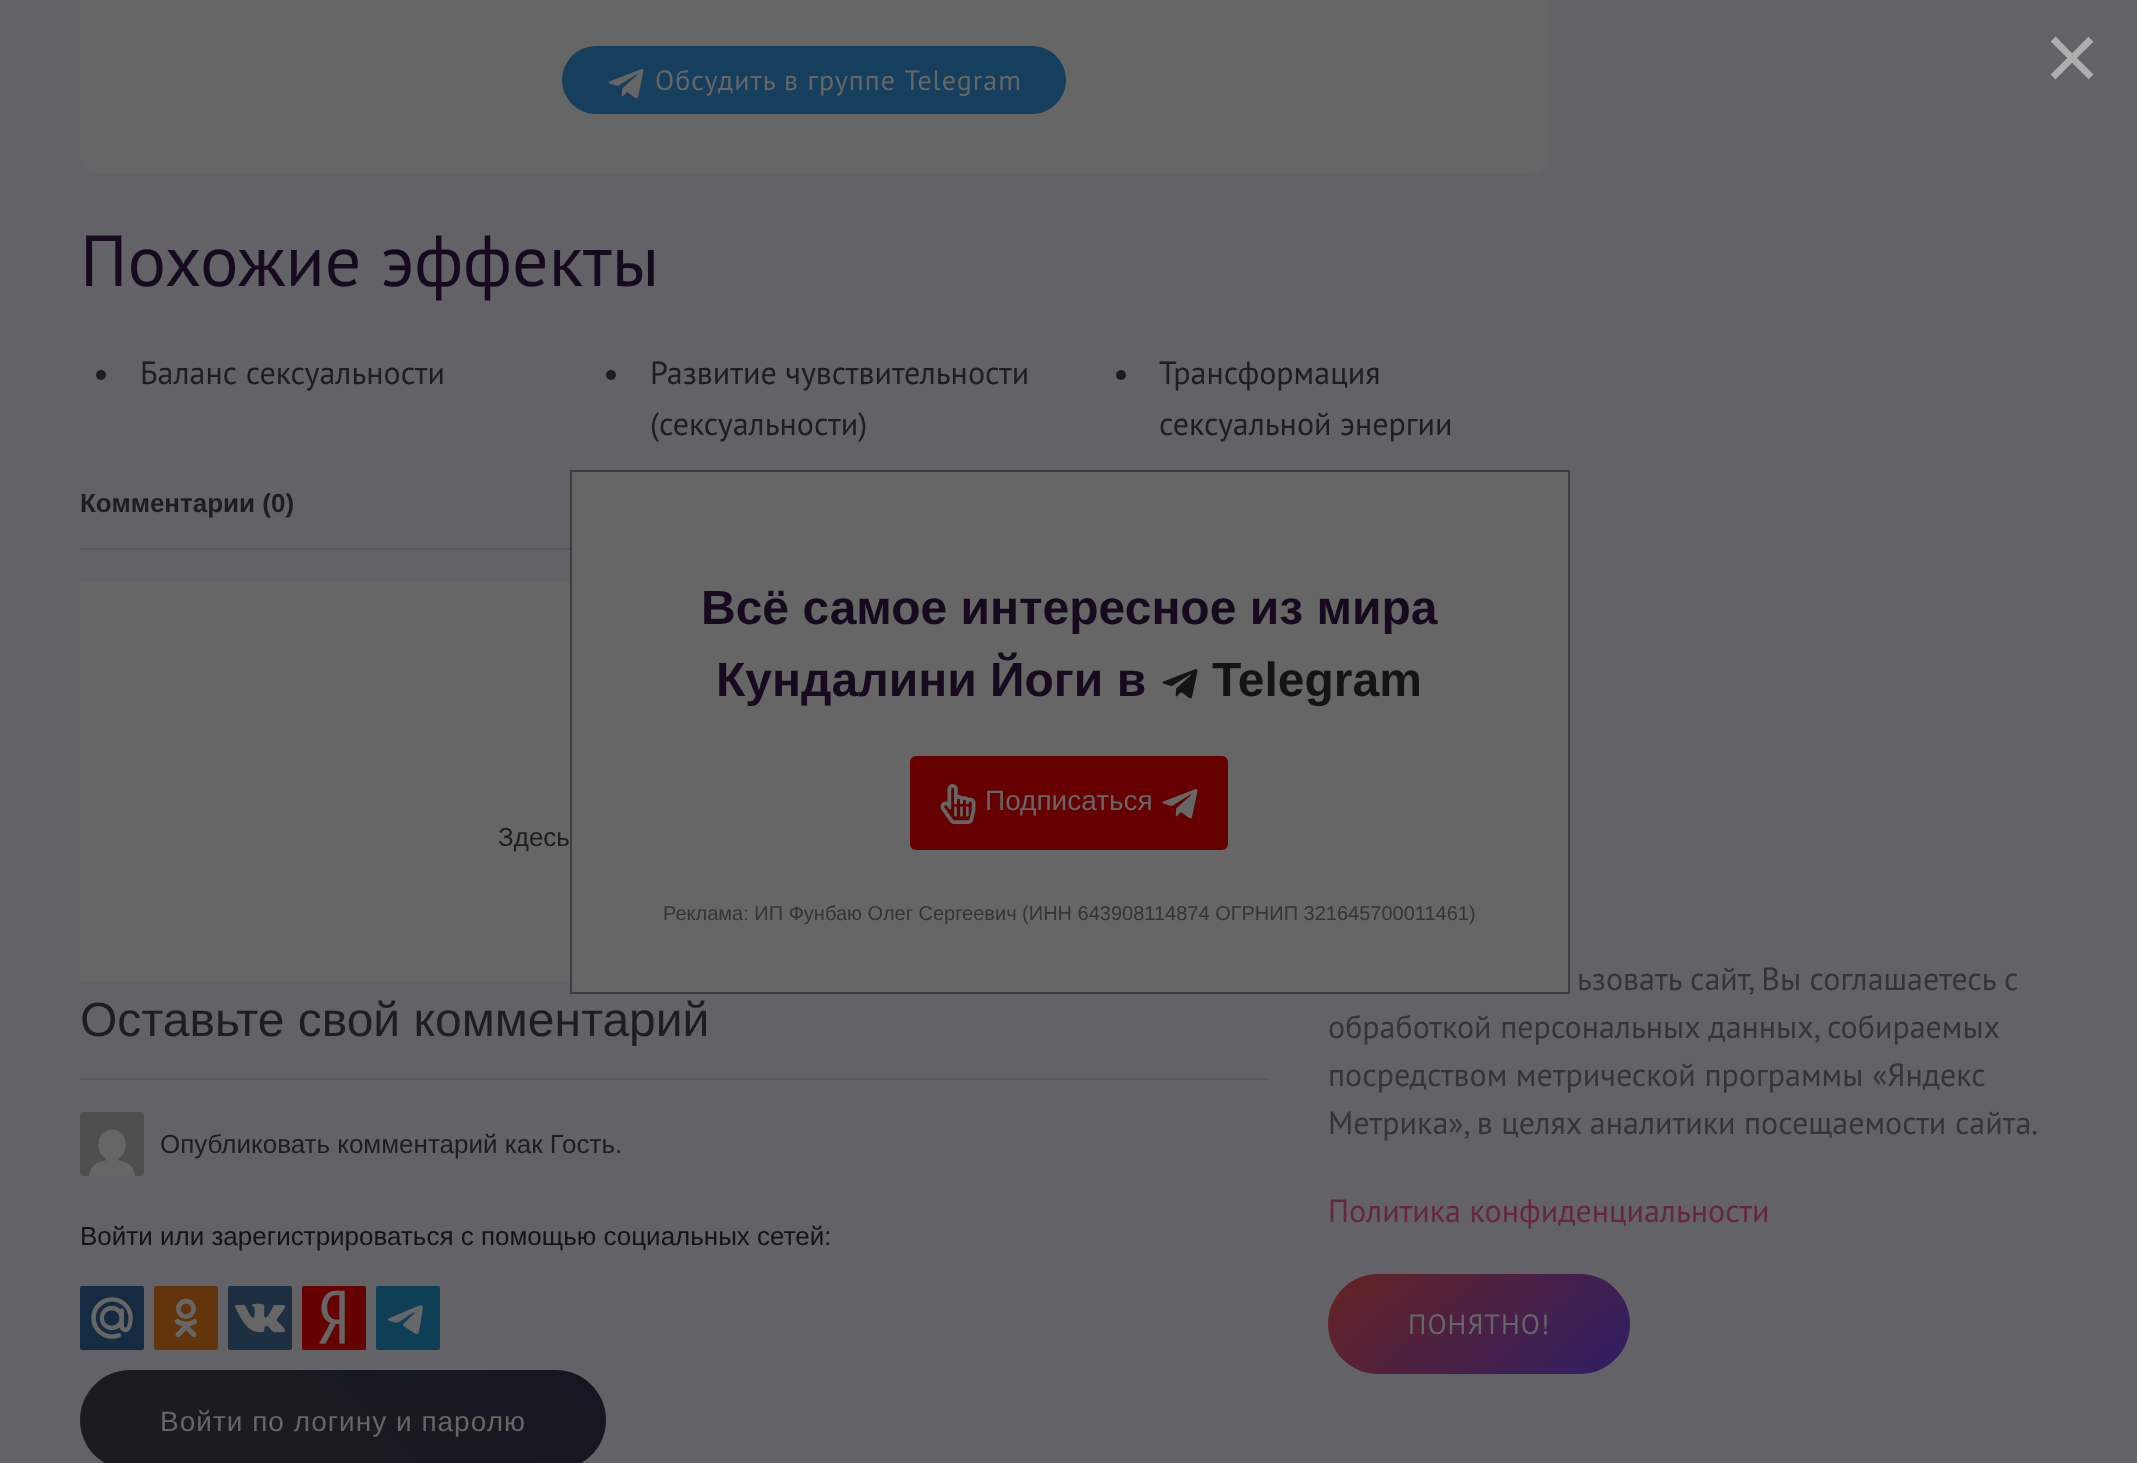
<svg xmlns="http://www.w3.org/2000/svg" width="2137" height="1463">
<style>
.a{font:96px Liberation Sans;fill:#aeaeae}
.b{font:bold 48px Liberation Sans;fill:#180a1e}
.c{font:bold 48px Liberation Sans;fill:#141414}
.d{font:28px Liberation Sans;fill:#666}
.e{font:20px Liberation Sans;fill:#363535}
.f{font:28px PT Sans;letter-spacing:1px;fill:#666}
.g{font:72px PT Sans;fill:#180a1e}
.h{font:32px PT Sans;fill:#1e1e1e}
.i{font:bold 26px Liberation Sans;fill:#1e1e1e}
.j{font:26px Liberation Sans;fill:#1e1e1e}
.k{font:48px Liberation Sans;fill:#1e1e1e}
.l{font:26px Liberation Sans;fill:#141414}
.m{font:28px Liberation Sans;letter-spacing:1px;fill:#666}
.n{font:32px PT Sans;fill:#363535}
.o{font:32px PT Sans;fill:#66273e}
</style>
<defs>
<linearGradient id="g1" gradientUnits="userSpaceOnUse" x1="187" y1="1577" x2="500" y2="1264"><stop offset="0.4" stop-color="#1a1c22"/><stop offset="1" stop-color="#151621"/></linearGradient>
<linearGradient id="g2" gradientUnits="userSpaceOnUse" x1="1384" y1="1222" x2="1574" y2="1426"><stop offset="0" stop-color="#662323"/><stop offset="1" stop-color="#2f1e66"/></linearGradient>
</defs>
<rect width="100%" height="100%" fill="#636266"/>
<path fill="#666" stroke="#3d3d3d" stroke-width="2" d="M571 471h998v522H571z"/>
<image href="1.png" x="1162" y="669" width="36" height="30"/>
<rect fill="#600" x="910" y="756" width="318" height="94" rx="6"/>
<image href="2.png" x="940" y="784" width="36" height="40"/>
<image href="3.png" x="1162" y="789" width="36" height="30"/>
<rect fill="#666" x="80" y="-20" width="1468" height="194" rx="20"/>
<rect fill="#163e5d" x="562" y="46" width="504" height="68" rx="34"/>
<image href="4.png" x="608" y="69" width="36" height="30"/>
<circle fill="#1e1e1f" cx="101" cy="375" r="5"/>
<circle fill="#1e1e1f" cx="611" cy="375" r="5"/>
<circle fill="#1e1e1f" cx="1121" cy="375" r="5"/>
<path fill="#585858" d="M80 548h490v2H80z"/>
<path fill="#666" d="M80 582h490v400H80z"/>
<path fill="#585858" d="M80 1078h1188v2H80z"/>
<image href="5.png" x="80" y="1112" width="64" height="64"/>
<rect fill="#152b42" x="80" y="1286" width="64" height="64" rx="2"/>
<image href="6.png" x="91" y="1297" width="42" height="42"/>
<rect fill="#62350c" x="154" y="1286" width="64" height="64" rx="2"/>
<image href="7.png" x="174" y="1298" width="24" height="40"/>
<image href="8.png" x="228" y="1286" width="64" height="64"/>
<rect fill="#660101" x="302" y="1286" width="64" height="64" rx="2"/>
<image href="9.png" x="319" y="1290" width="26" height="54"/>
<rect fill="#0e3f57" x="376" y="1286" width="64" height="64" rx="2"/>
<image href="10.png" x="388" y="1305" width="35" height="29"/>
<rect fill="url(#g1)" x="80" y="1370" width="526" height="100" rx="50"/>
<rect fill="url(#g2)" x="1328" y="1274" width="302" height="100" rx="50"/>
<text class="a" x="2044" y="90">×</text>
<text class="b" x="701" y="624">Всё самое интересное из мира</text>
<text class="b" x="716" y="696">Кундалини Йоги в</text>
<text class="c" x="1212" y="696">Telegram</text>
<text class="d" x="985" y="810">Подписаться</text>
<text class="e" x="663" y="920">Реклама: ИП Фунбаю Олег Сергеевич (ИНН 643908114874 ОГРНИП 321645700011461)</text>
<text class="f" x="655" y="90">Обсудить в группе Telegram</text>
<text class="g" x="80" y="286">Похожие эффекты</text>
<text class="h" x="140" y="384">Баланс сексуальности</text>
<text class="h" x="650" y="384">Развитие чувствительности</text>
<text class="h" x="650" y="435">(сексуальности)</text>
<text class="h" x="1159" y="384">Трансформация</text>
<text class="h" x="1159" y="435">сексуальной энергии</text>
<text class="i" x="80" y="512">Комментарии (0)</text>
<text class="j" x="498" y="846">Здесь</text>
<text class="k" x="80" y="1036">Оставьте свой комментарий</text>
<text class="j" x="160" y="1153">Опубликовать комментарий как Гость.</text>
<text class="l" x="80" y="1245">Войти или зарегистрироваться с помощью социальных сетей:</text>
<text class="m" x="160" y="1431">Войти по логину и паролю</text>
<text class="n" x="1577" y="990">ьзовать сайт, Вы соглашаетесь с</text>
<text class="n" x="1328" y="1038">обработкой персональных данных, собираемых</text>
<text class="n" x="1328" y="1086">посредством метрической программы «Яндекс</text>
<text class="n" x="1328" y="1134">Метрика», в целях аналитики посещаемости сайта.</text>
<text class="o" x="1328" y="1222">Политика конфиденциальности</text>
<text class="f" x="1408" y="1334">ПОНЯТНО!</text>
</svg>
